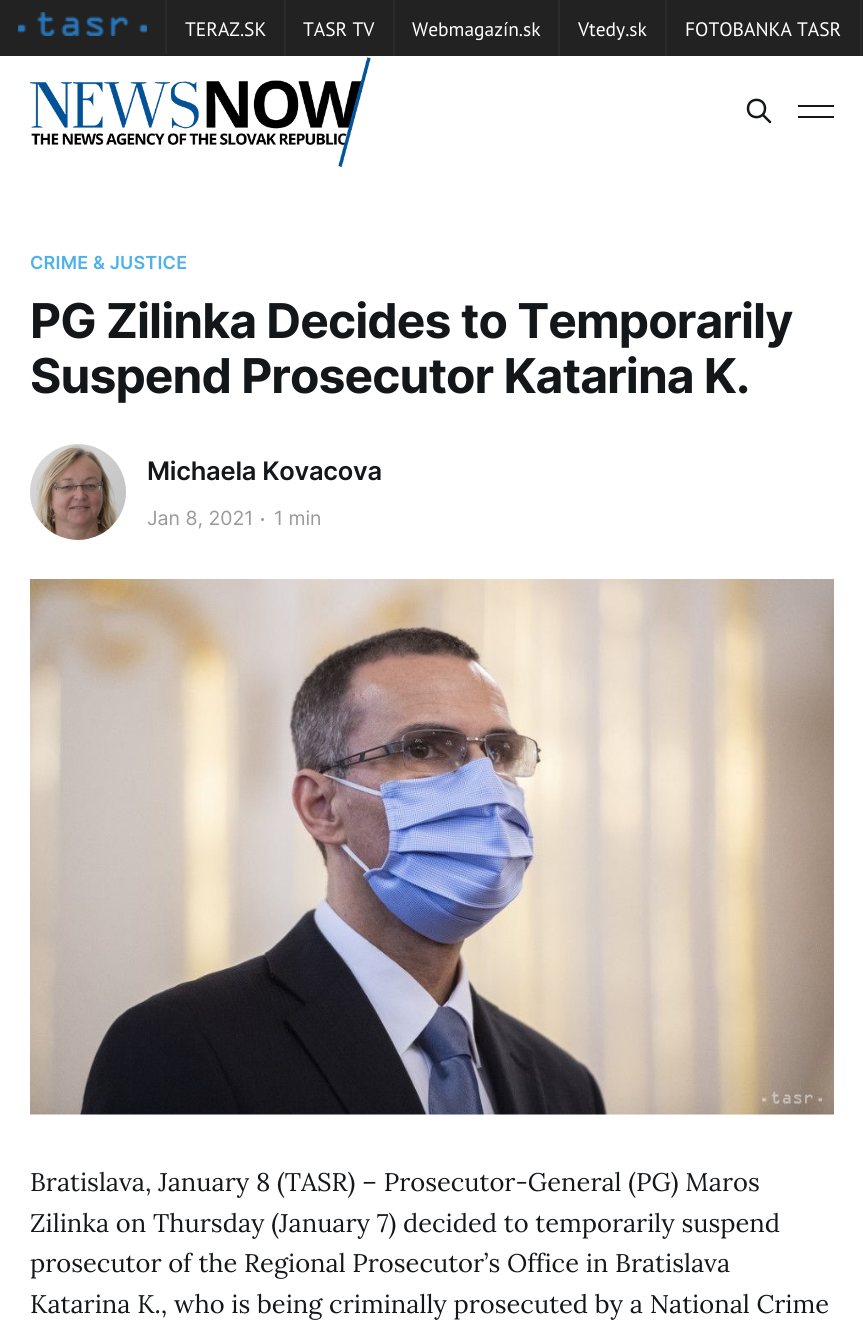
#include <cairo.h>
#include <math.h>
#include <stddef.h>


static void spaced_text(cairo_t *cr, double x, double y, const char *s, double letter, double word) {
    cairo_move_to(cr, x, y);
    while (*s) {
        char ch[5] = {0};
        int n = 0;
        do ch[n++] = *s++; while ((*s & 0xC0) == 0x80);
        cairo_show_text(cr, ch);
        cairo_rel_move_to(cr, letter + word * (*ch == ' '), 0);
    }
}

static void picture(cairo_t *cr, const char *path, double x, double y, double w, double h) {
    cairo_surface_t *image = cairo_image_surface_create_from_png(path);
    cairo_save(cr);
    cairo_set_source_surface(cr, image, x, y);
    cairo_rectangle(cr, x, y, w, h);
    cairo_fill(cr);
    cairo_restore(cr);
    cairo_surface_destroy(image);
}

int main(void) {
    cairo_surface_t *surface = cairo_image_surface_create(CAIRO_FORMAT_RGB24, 863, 1320);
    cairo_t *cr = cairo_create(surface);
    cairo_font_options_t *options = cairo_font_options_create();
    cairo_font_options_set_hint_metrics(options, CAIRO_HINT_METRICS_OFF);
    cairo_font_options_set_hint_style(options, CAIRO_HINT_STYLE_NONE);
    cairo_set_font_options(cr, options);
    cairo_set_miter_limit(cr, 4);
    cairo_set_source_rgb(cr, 1, 1, 1);
    cairo_paint(cr);
    cairo_set_source_rgb(cr, 0.133, 0.133, 0.133);
    cairo_rectangle(cr, 0, 0, 863, 56);
    cairo_fill(cr);
    cairo_set_source_rgb(cr, 0.169, 0.169, 0.169);
    cairo_rectangle(cr, 165, 0, 2, 54);
    cairo_fill(cr);
    picture(cr, "img1.png", 18, 12, 129, 24);
    cairo_rectangle(cr, 284, 0, 2, 56);
    cairo_fill(cr);
    cairo_select_font_face(cr, "PT Sans", CAIRO_FONT_SLANT_NORMAL, CAIRO_FONT_WEIGHT_NORMAL);
    cairo_set_font_size(cr, 19.5);
    cairo_set_source_rgb(cr, 1, 1, 1);
    cairo_move_to(cr, 185, 36);
    cairo_show_text(cr, "TERAZ.SK");
    cairo_set_source_rgb(cr, 0.169, 0.169, 0.169);
    cairo_rectangle(cr, 393, 0, 2, 56);
    cairo_fill(cr);
    cairo_set_source_rgb(cr, 1, 1, 1);
    cairo_move_to(cr, 303, 36);
    cairo_show_text(cr, "TASR TV");
    cairo_set_source_rgb(cr, 0.169, 0.169, 0.169);
    cairo_rectangle(cr, 558, 0, 2, 56);
    cairo_fill(cr);
    cairo_set_source_rgb(cr, 1, 1, 1);
    cairo_move_to(cr, 412, 36);
    cairo_show_text(cr, "Webmagazín.sk");
    cairo_set_source_rgb(cr, 0.169, 0.169, 0.169);
    cairo_rectangle(cr, 665, 0, 2, 56);
    cairo_fill(cr);
    cairo_set_source_rgb(cr, 1, 1, 1);
    cairo_move_to(cr, 578, 36);
    cairo_show_text(cr, "Vtedy.sk");
    cairo_set_source_rgb(cr, 0.169, 0.169, 0.169);
    cairo_rectangle(cr, 860, 0, 2, 56);
    cairo_fill(cr);
    cairo_set_source_rgb(cr, 1, 1, 1);
    cairo_move_to(cr, 685, 36);
    cairo_show_text(cr, "FOTOBANKA TASR");
    picture(cr, "img2.png", 30, 57, 341, 110);
    cairo_new_path(cr);
    cairo_move_to(cr, 770, 122);
    cairo_line_to(cr, 763, 115);
    cairo_move_to(cr, 765, 108.5);
    cairo_curve_to(cr, 765, 120, 748, 120, 748, 108.5);
    cairo_curve_to(cr, 748, 97, 765, 97, 765, 108.5);
    cairo_close_path(cr);
    cairo_set_source_rgb(cr, 0.082, 0.09, 0.102);
    cairo_set_line_width(cr, 2.5);
    cairo_set_line_cap(cr, CAIRO_LINE_CAP_ROUND);
    cairo_set_line_join(cr, CAIRO_LINE_JOIN_ROUND);
    cairo_stroke(cr);
    cairo_rectangle(cr, 798, 105, 36, 2);
    cairo_fill(cr);
    cairo_rectangle(cr, 798, 116, 36, 2);
    cairo_fill(cr);
    cairo_select_font_face(cr, "Inter SemiBold", CAIRO_FONT_SLANT_NORMAL, CAIRO_FONT_WEIGHT_NORMAL);
    cairo_set_font_size(cr, 18);
    cairo_set_source_rgb(cr, 0.302, 0.698, 0.925);
    spaced_text(cr, 30, 269, "CRIME & JUSTICE", 0.2, 0);
    cairo_select_font_face(cr, "Inter", CAIRO_FONT_SLANT_NORMAL, CAIRO_FONT_WEIGHT_BOLD);
    cairo_set_font_size(cr, 48);
    cairo_set_source_rgb(cr, 0.082, 0.09, 0.102);
    spaced_text(cr, 30, 338, "PG Zilinka Decides to Temporarily", -0.95, 0);
    spaced_text(cr, 30, 393, "Suspend Prosecutor Katarina K.", -0.95, 0);
    picture(cr, "img3.png", 30, 444, 96, 96);
    cairo_select_font_face(cr, "Inter SemiBold", CAIRO_FONT_SLANT_NORMAL, CAIRO_FONT_WEIGHT_NORMAL);
    cairo_set_font_size(cr, 25.5);
    spaced_text(cr, 147, 480, "Michaela Kovacova", -0.25, 0);
    cairo_select_font_face(cr, "Inter", CAIRO_FONT_SLANT_NORMAL, CAIRO_FONT_WEIGHT_NORMAL);
    cairo_set_font_size(cr, 19.5);
    cairo_set_source_rgb(cr, 0.6, 0.6, 0.6);
    cairo_move_to(cr, 147, 525);
    cairo_show_text(cr, "Jan 8, 2021");
    cairo_new_path(cr);
    cairo_arc(cr, 262.5, 519.5, 1.5, 0, 2 * M_PI);
    cairo_fill(cr);
    cairo_move_to(cr, 274, 525);
    cairo_show_text(cr, "1 min");
    picture(cr, "img4.png", 30, 579, 804, 536);
    cairo_select_font_face(cr, "Lora", CAIRO_FONT_SLANT_NORMAL, CAIRO_FONT_WEIGHT_NORMAL);
    cairo_set_font_size(cr, 25.5);
    cairo_set_source_rgb(cr, 0.082, 0.09, 0.102);
    cairo_move_to(cr, 30, 1191);
    cairo_show_text(cr, "Bratislava, January 8 (TASR) – Prosecutor-General (PG) Maros");
    cairo_move_to(cr, 30, 1232);
    cairo_show_text(cr, "Zilinka on Thursday (January 7) decided to temporarily suspend");
    cairo_move_to(cr, 30, 1272);
    cairo_show_text(cr, "prosecutor of the Regional Prosecutor’s Office in Bratislava");
    cairo_move_to(cr, 30, 1313);
    cairo_show_text(cr, "Katarina K., who is being criminally prosecuted by a National Crime");
    cairo_surface_write_to_png(surface, "page.png");
    cairo_font_options_destroy(options);
    cairo_destroy(cr);
    cairo_surface_destroy(surface);
    return 0;
}
